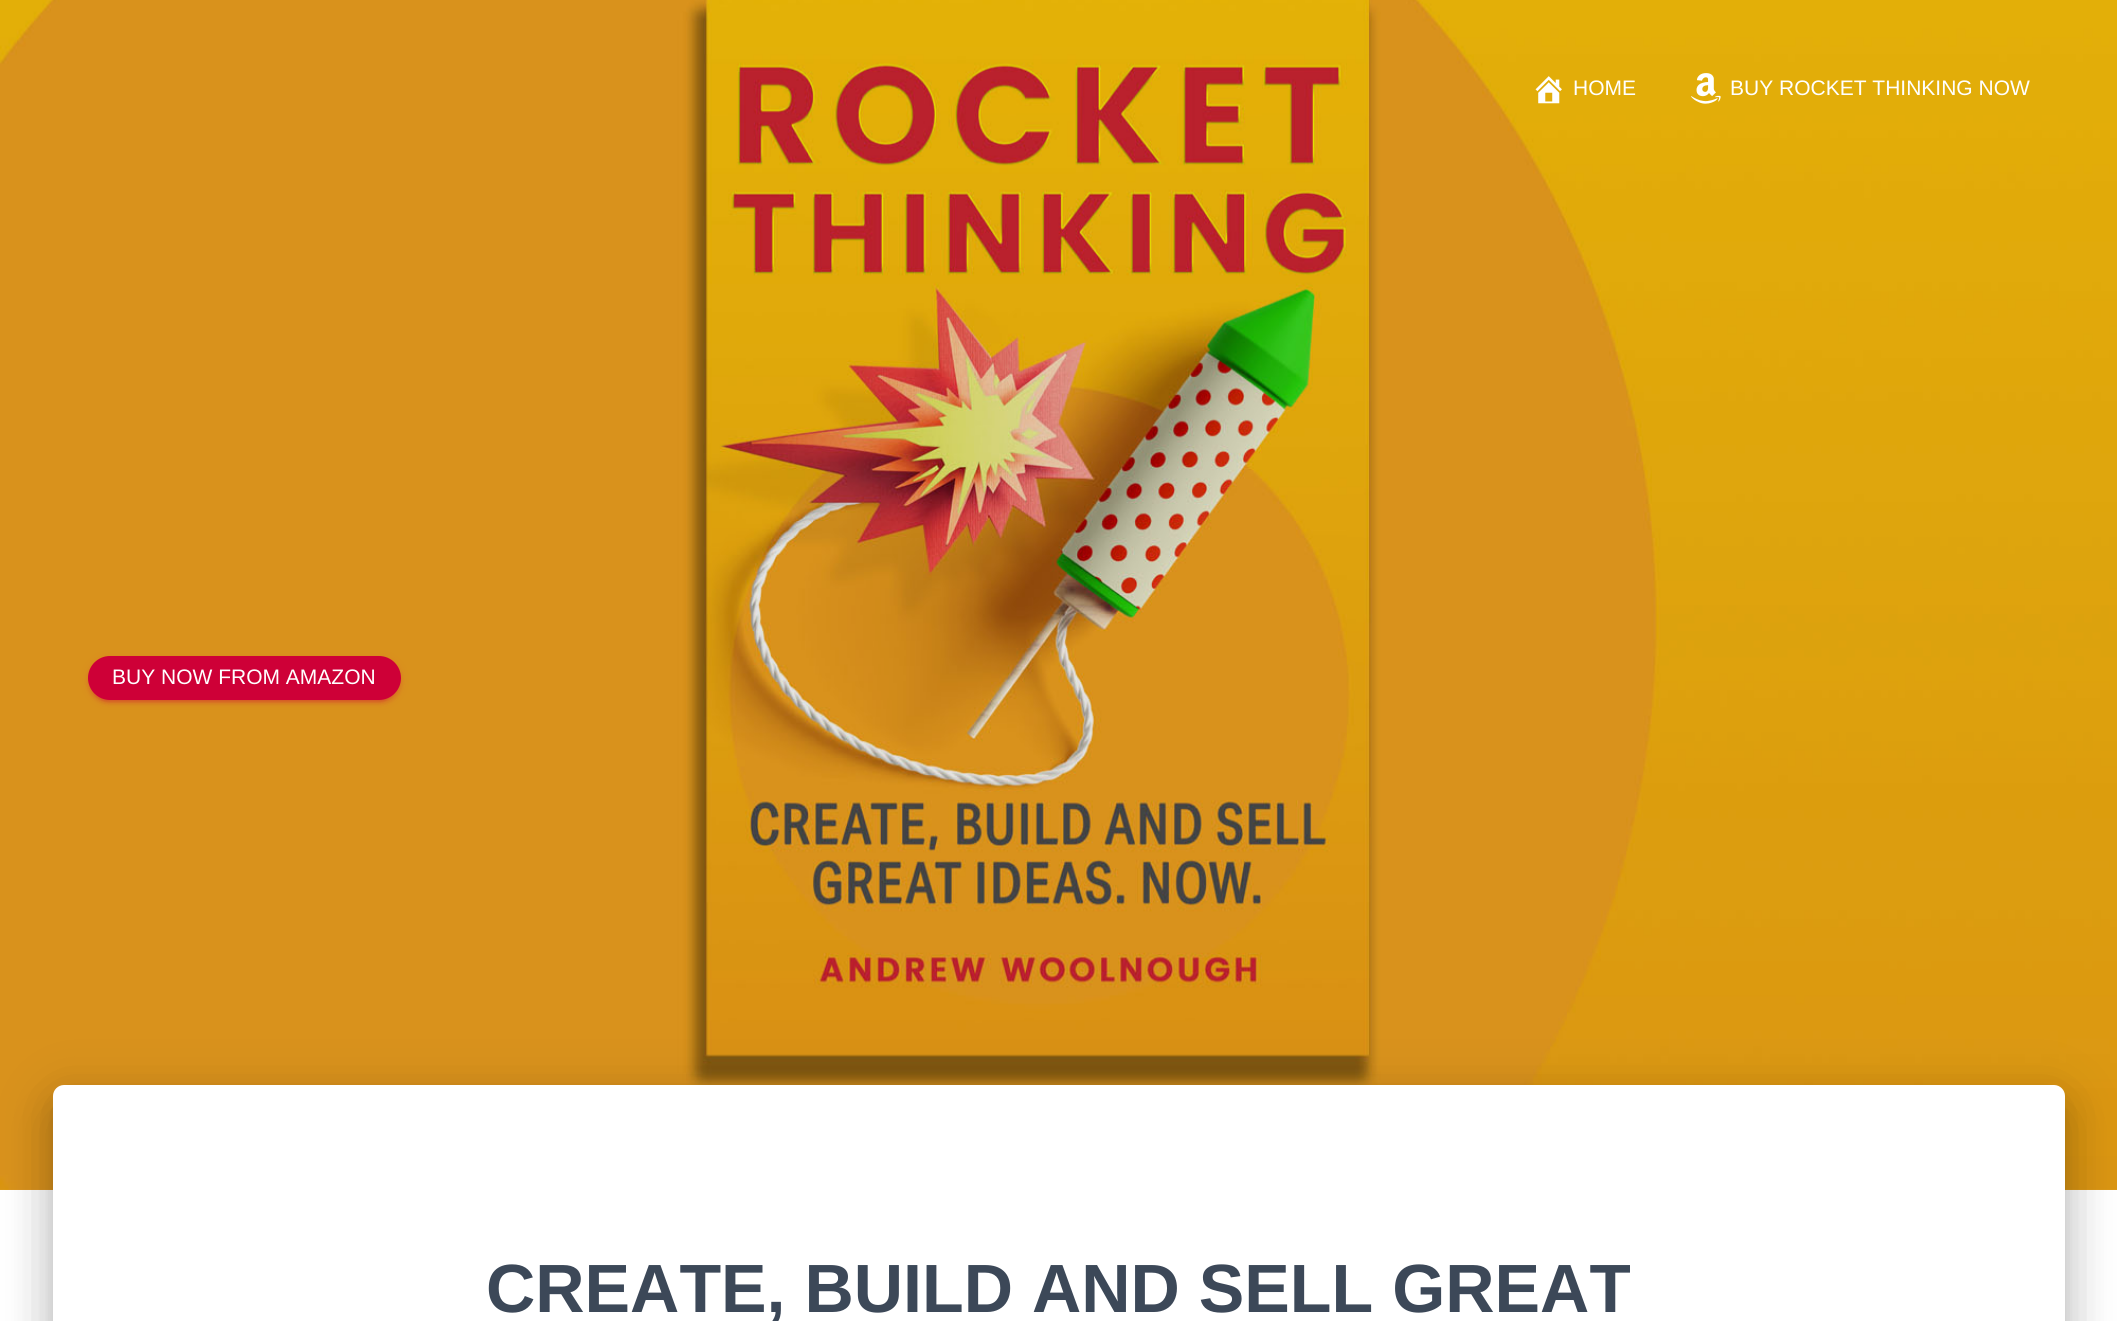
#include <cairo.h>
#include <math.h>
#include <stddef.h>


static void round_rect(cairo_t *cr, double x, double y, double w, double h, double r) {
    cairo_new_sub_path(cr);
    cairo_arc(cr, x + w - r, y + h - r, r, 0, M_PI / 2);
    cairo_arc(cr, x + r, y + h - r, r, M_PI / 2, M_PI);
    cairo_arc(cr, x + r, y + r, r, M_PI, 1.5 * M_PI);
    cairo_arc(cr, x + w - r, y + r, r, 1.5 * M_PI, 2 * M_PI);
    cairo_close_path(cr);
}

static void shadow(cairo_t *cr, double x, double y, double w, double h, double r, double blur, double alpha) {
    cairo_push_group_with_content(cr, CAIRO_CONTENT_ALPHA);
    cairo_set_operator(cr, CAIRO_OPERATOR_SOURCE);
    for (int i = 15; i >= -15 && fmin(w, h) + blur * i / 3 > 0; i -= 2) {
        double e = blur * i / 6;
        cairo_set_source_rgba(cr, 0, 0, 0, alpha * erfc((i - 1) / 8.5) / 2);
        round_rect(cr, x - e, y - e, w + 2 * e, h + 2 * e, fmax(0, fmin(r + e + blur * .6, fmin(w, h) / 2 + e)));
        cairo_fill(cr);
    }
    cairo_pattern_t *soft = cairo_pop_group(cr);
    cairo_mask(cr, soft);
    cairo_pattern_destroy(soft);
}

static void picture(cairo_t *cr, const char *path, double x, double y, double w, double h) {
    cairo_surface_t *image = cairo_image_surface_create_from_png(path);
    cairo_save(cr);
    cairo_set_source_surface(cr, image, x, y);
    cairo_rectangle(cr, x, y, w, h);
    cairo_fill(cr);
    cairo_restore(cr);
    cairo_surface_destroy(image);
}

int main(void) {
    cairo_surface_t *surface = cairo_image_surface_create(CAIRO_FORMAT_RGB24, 2117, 1321);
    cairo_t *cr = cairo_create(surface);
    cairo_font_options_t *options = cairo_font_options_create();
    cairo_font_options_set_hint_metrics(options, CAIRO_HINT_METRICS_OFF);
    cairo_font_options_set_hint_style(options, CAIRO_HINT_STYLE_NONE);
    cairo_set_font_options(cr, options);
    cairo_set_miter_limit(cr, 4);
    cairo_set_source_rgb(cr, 1, 1, 1);
    cairo_paint(cr);
    picture(cr, "img3.png", 0, 0, 2117, 1190);
    picture(cr, "img1.png", 1535, 76, 27, 28);
    cairo_select_font_face(cr, "Liberation Sans", CAIRO_FONT_SLANT_NORMAL, CAIRO_FONT_WEIGHT_NORMAL);
    cairo_set_font_size(cr, 21);
    cairo_set_source_rgb(cr, 1, 1, 1);
    cairo_move_to(cr, 1573, 95);
    cairo_show_text(cr, "HOME");
    picture(cr, "img2.png", 1691, 73, 30, 31);
    cairo_move_to(cr, 1730, 95);
    cairo_show_text(cr, "BUY ROCKET THINKING NOW");
    cairo_set_source_rgb(cr, 0.808, 0, 0.216);
    shadow(cr, 88, 658, 313, 44, 22, 4.5, 0.12);
    shadow(cr, 91, 665, 306, 37, 18.5, 1, 0.2);
    shadow(cr, 88, 660, 313, 44, 22, 2, 0.14);
    cairo_set_source_rgb(cr, 0.808, 0, 0.216);
    round_rect(cr, 88, 656, 313, 44, 22);
    cairo_fill(cr);
    cairo_set_source_rgb(cr, 1, 1, 1);
    cairo_move_to(cr, 112, 684);
    cairo_show_text(cr, "BUY NOW FROM AMAZON");
    cairo_set_source_rgb(cr, 0, 0, 0);
    shadow(cr, 61, 1108, 1995, 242, 2, 9, 0.2);
    shadow(cr, 44, 1087, 2030, 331, 19, 26, 0.12);
    shadow(cr, 49, 1110, 2020, 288, 14, 21, 0.14);
    cairo_set_source_rgb(cr, 1, 1, 1);
    cairo_new_path(cr);
    cairo_move_to(cr, 64, 1085);
    cairo_line_to(cr, 2054, 1085);
    cairo_curve_to(cr, 2060, 1085, 2065, 1090, 2065, 1096);
    cairo_line_to(cr, 2065, 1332);
    cairo_line_to(cr, 53, 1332);
    cairo_line_to(cr, 53, 1096);
    cairo_curve_to(cr, 53, 1090, 58, 1085, 64, 1085);
    cairo_close_path(cr);
    cairo_fill(cr);
    cairo_select_font_face(cr, "Liberation Sans", CAIRO_FONT_SLANT_NORMAL, CAIRO_FONT_WEIGHT_BOLD);
    cairo_set_font_size(cr, 68.25);
    cairo_set_source_rgb(cr, 0.235, 0.282, 0.345);
    cairo_move_to(cr, 486, 1312);
    cairo_show_text(cr, "CREATE, BUILD AND SELL GREAT");
    cairo_surface_write_to_png(surface, "page.png");
    cairo_font_options_destroy(options);
    cairo_destroy(cr);
    cairo_surface_destroy(surface);
    return 0;
}
